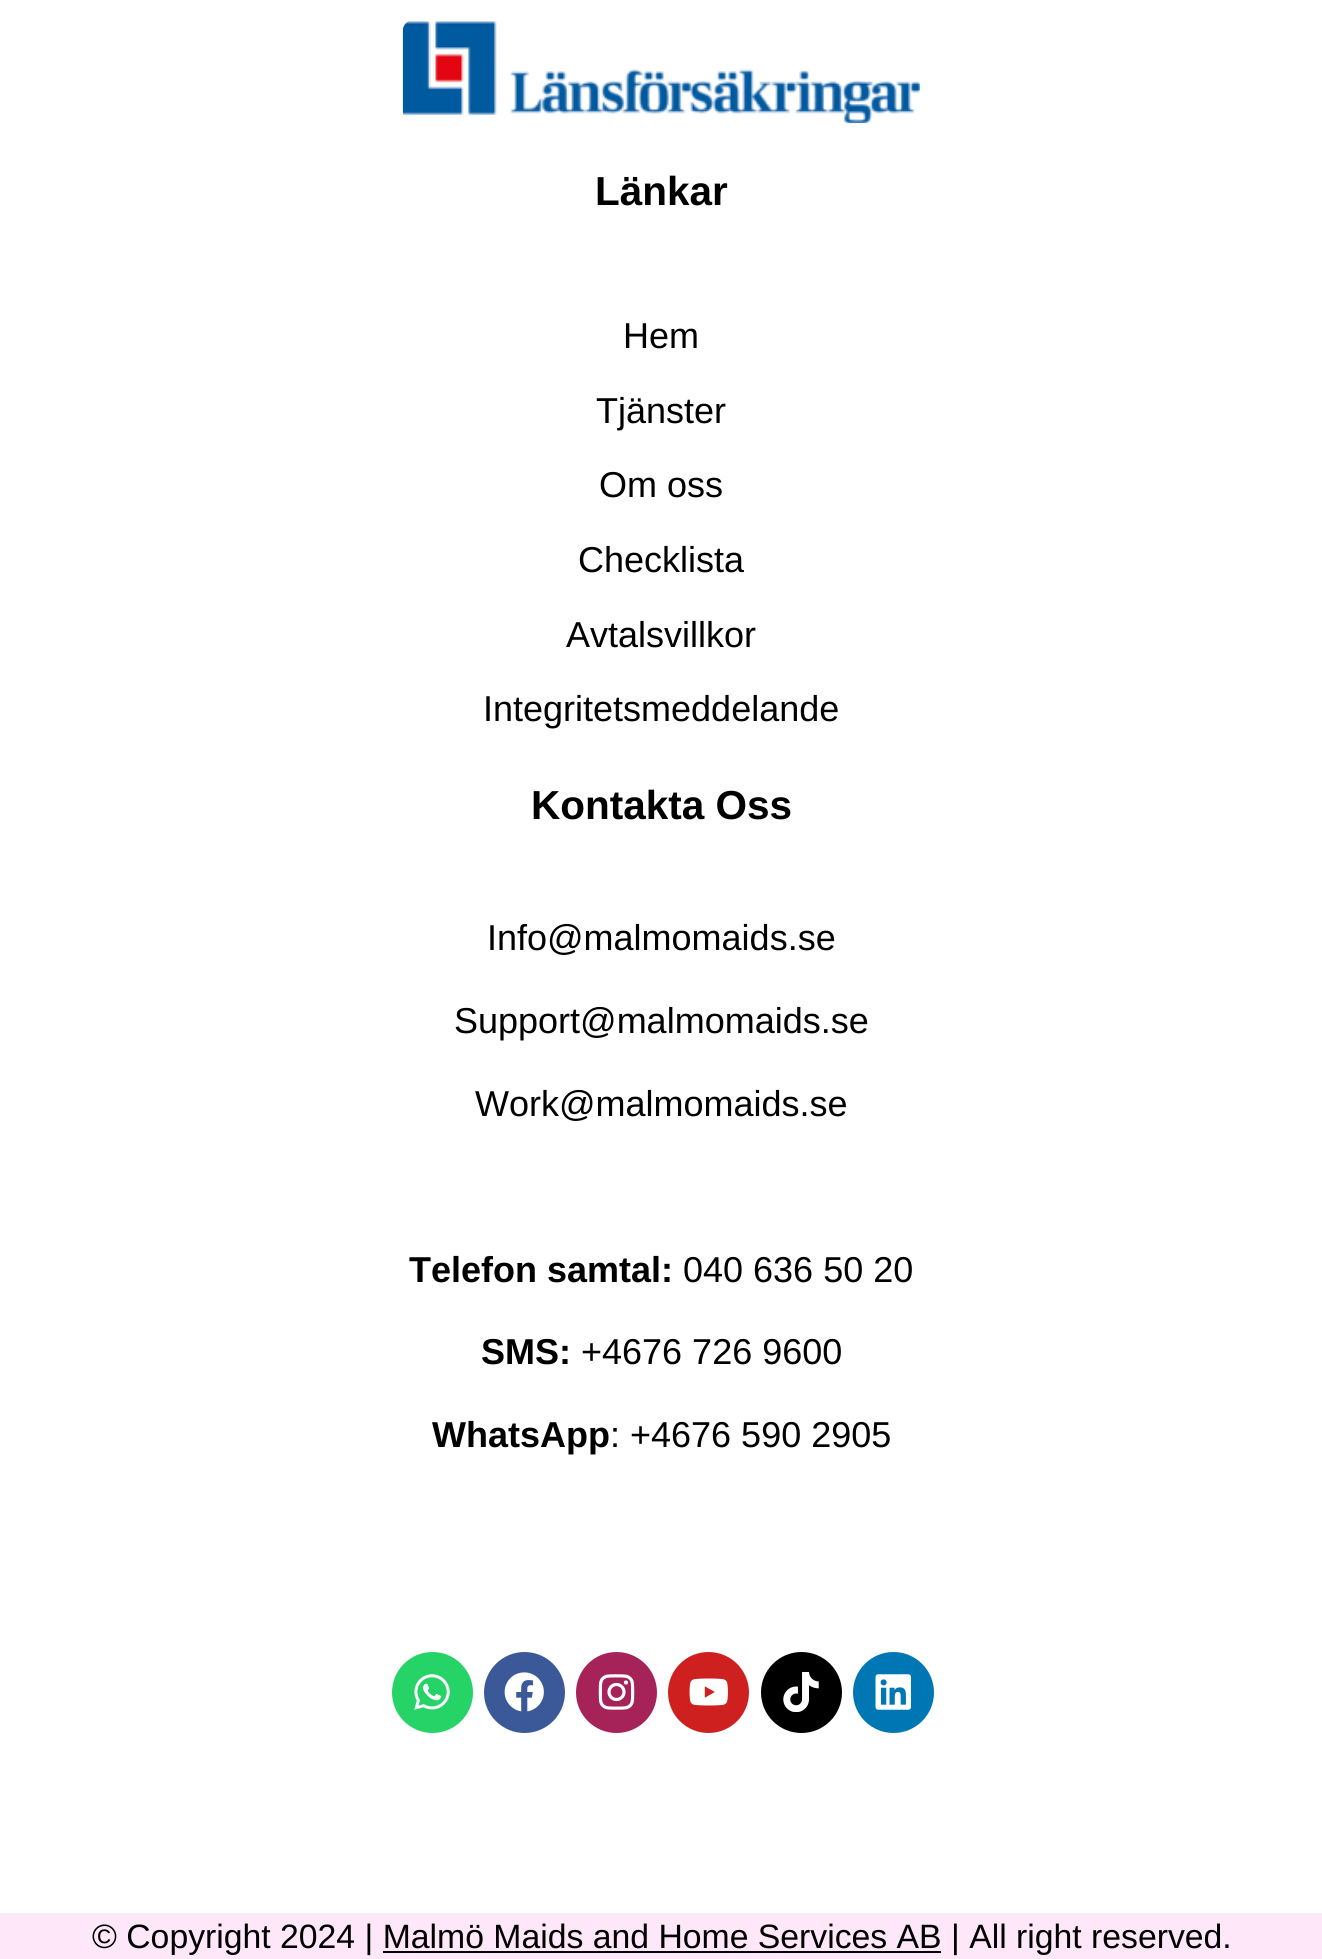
#include <cairo.h>
#include <math.h>
#include <stddef.h>


static void picture(cairo_t *cr, const char *path, double x, double y, double w, double h) {
    cairo_surface_t *image = cairo_image_surface_create_from_png(path);
    cairo_save(cr);
    cairo_set_source_surface(cr, image, x, y);
    cairo_rectangle(cr, x, y, w, h);
    cairo_fill(cr);
    cairo_restore(cr);
    cairo_surface_destroy(image);
}

int main(void) {
    cairo_surface_t *surface = cairo_image_surface_create(CAIRO_FORMAT_RGB24, 1322, 1959);
    cairo_t *cr = cairo_create(surface);
    cairo_font_options_t *options = cairo_font_options_create();
    cairo_font_options_set_hint_metrics(options, CAIRO_HINT_METRICS_OFF);
    cairo_font_options_set_hint_style(options, CAIRO_HINT_STYLE_NONE);
    cairo_set_font_options(cr, options);
    cairo_set_miter_limit(cr, 4);
    cairo_set_source_rgb(cr, 1, 1, 1);
    cairo_paint(cr);
    picture(cr, "img1.png", 402, 21, 519, 103);
    cairo_select_font_face(cr, "Liberation Sans", CAIRO_FONT_SLANT_NORMAL, CAIRO_FONT_WEIGHT_BOLD);
    cairo_set_font_size(cr, 40.5);
    cairo_set_source_rgb(cr, 0, 0, 0);
    cairo_move_to(cr, 595, 205);
    cairo_show_text(cr, "Länkar");
    cairo_select_font_face(cr, "Liberation Sans", CAIRO_FONT_SLANT_NORMAL, CAIRO_FONT_WEIGHT_NORMAL);
    cairo_set_font_size(cr, 36);
    cairo_move_to(cr, 623, 348);
    cairo_show_text(cr, "Hem");
    cairo_move_to(cr, 596, 423);
    cairo_show_text(cr, "Tjänster");
    cairo_move_to(cr, 599, 497);
    cairo_show_text(cr, "Om oss");
    cairo_move_to(cr, 578, 572);
    cairo_show_text(cr, "Checklista");
    cairo_move_to(cr, 566, 647);
    cairo_show_text(cr, "Avtalsvillkor");
    cairo_move_to(cr, 483, 721);
    cairo_show_text(cr, "Integritetsmeddelande");
    cairo_select_font_face(cr, "Liberation Sans", CAIRO_FONT_SLANT_NORMAL, CAIRO_FONT_WEIGHT_BOLD);
    cairo_set_font_size(cr, 40.5);
    cairo_move_to(cr, 531, 819);
    cairo_show_text(cr, "Kontakta Oss");
    cairo_select_font_face(cr, "Liberation Sans", CAIRO_FONT_SLANT_NORMAL, CAIRO_FONT_WEIGHT_NORMAL);
    cairo_set_font_size(cr, 36);
    cairo_move_to(cr, 487, 950);
    cairo_show_text(cr, "Info@malmomaids.se");
    cairo_move_to(cr, 454, 1033);
    cairo_show_text(cr, "Support@malmomaids.se");
    cairo_move_to(cr, 475, 1116);
    cairo_show_text(cr, "Work@malmomaids.se");
    cairo_select_font_face(cr, "Liberation Sans", CAIRO_FONT_SLANT_NORMAL, CAIRO_FONT_WEIGHT_BOLD);
    cairo_move_to(cr, 409, 1282);
    cairo_show_text(cr, "Telefon samtal:");
    cairo_select_font_face(cr, "Liberation Sans", CAIRO_FONT_SLANT_NORMAL, CAIRO_FONT_WEIGHT_NORMAL);
    cairo_move_to(cr, 683, 1282);
    cairo_show_text(cr, "040 636 50 20");
    cairo_select_font_face(cr, "Liberation Sans", CAIRO_FONT_SLANT_NORMAL, CAIRO_FONT_WEIGHT_BOLD);
    cairo_move_to(cr, 481, 1364);
    cairo_show_text(cr, "SMS:");
    cairo_select_font_face(cr, "Liberation Sans", CAIRO_FONT_SLANT_NORMAL, CAIRO_FONT_WEIGHT_NORMAL);
    cairo_move_to(cr, 581, 1364);
    cairo_show_text(cr, "+4676 726 9600");
    cairo_select_font_face(cr, "Liberation Sans", CAIRO_FONT_SLANT_NORMAL, CAIRO_FONT_WEIGHT_BOLD);
    cairo_move_to(cr, 432, 1447);
    cairo_show_text(cr, "WhatsApp");
    cairo_select_font_face(cr, "Liberation Sans", CAIRO_FONT_SLANT_NORMAL, CAIRO_FONT_WEIGHT_NORMAL);
    cairo_move_to(cr, 610, 1447);
    cairo_show_text(cr, ": +4676 590 2905");
    cairo_set_source_rgb(cr, 0.145, 0.827, 0.4);
    cairo_new_path(cr);
    cairo_arc(cr, 432.5, 1692.5, 40.5, 0, 2 * M_PI);
    cairo_fill(cr);
    picture(cr, "img2.png", 414, 1674, 36, 36);
    cairo_set_source_rgb(cr, 0.231, 0.349, 0.596);
    cairo_arc(cr, 524.5, 1692.5, 40.5, 0, 2 * M_PI);
    cairo_fill(cr);
    picture(cr, "img3.png", 504, 1672, 40, 40);
    cairo_set_source_rgb(cr, 0.651, 0.137, 0.349);
    cairo_arc(cr, 616.5, 1692.5, 40.5, 0, 2 * M_PI);
    cairo_fill(cr);
    picture(cr, "img4.png", 598, 1674, 37, 36);
    cairo_set_source_rgb(cr, 0.804, 0.125, 0.122);
    cairo_arc(cr, 708.5, 1692.5, 40.5, 0, 2 * M_PI);
    cairo_fill(cr);
    picture(cr, "img5.png", 689, 1678, 39, 28);
    cairo_set_source_rgb(cr, 0, 0, 0);
    cairo_arc(cr, 801.5, 1692.5, 40.5, 0, 2 * M_PI);
    cairo_fill(cr);
    picture(cr, "img6.png", 783, 1672, 36, 40);
    cairo_set_source_rgb(cr, 0, 0.467, 0.71);
    cairo_arc(cr, 893.5, 1692.5, 40.5, 0, 2 * M_PI);
    cairo_fill(cr);
    picture(cr, "img7.png", 875, 1674, 36, 36);
    cairo_set_source_rgb(cr, 0.992, 0.906, 0.976);
    cairo_rectangle(cr, 0, 1913, 1322, 46);
    cairo_fill(cr);
    cairo_set_font_size(cr, 33.75);
    cairo_set_source_rgb(cr, 0, 0, 0);
    cairo_move_to(cr, 92, 1948);
    cairo_show_text(cr, "© Copyright 2024 | Malmö Maids and Home Services AB | All right reserved.");
    cairo_rectangle(cr, 383, 1951, 558, 2);
    cairo_fill(cr);
    cairo_surface_write_to_png(surface, "page.png");
    cairo_font_options_destroy(options);
    cairo_destroy(cr);
    cairo_surface_destroy(surface);
    return 0;
}
